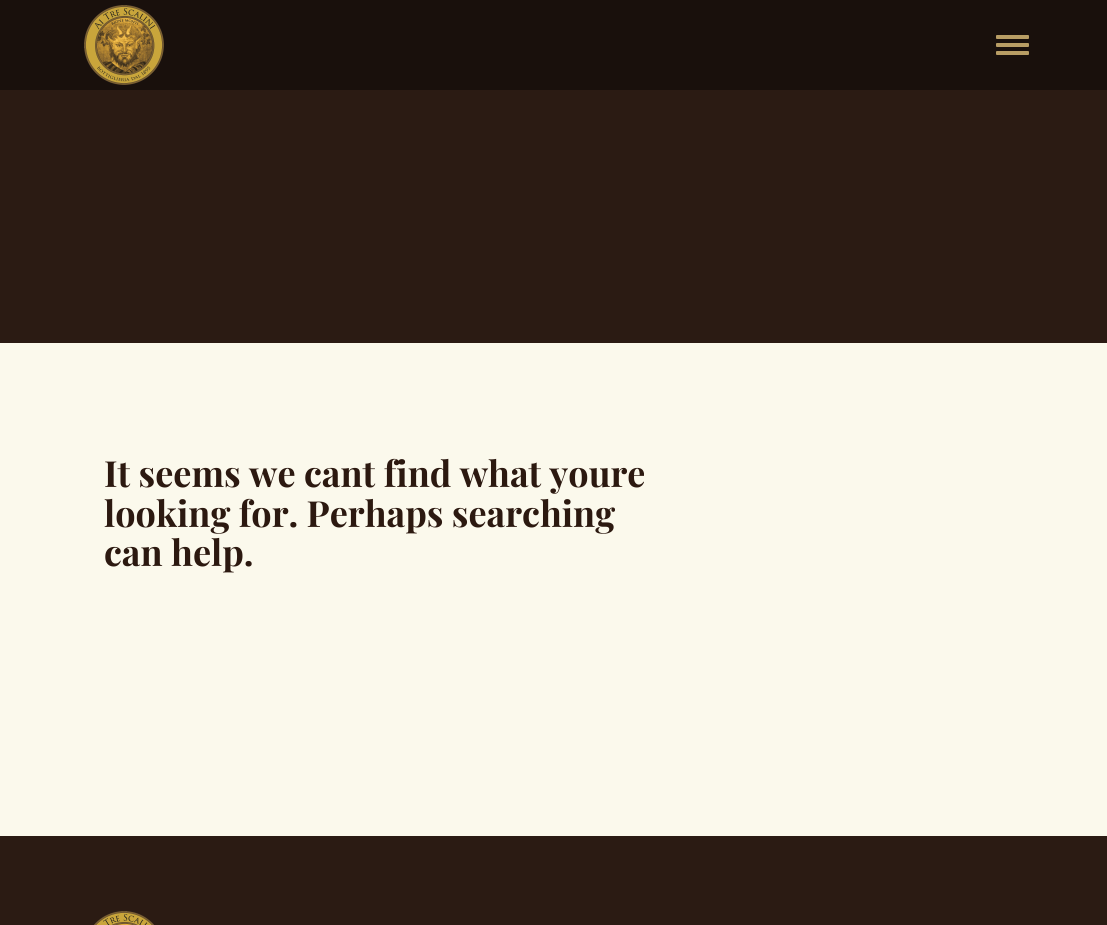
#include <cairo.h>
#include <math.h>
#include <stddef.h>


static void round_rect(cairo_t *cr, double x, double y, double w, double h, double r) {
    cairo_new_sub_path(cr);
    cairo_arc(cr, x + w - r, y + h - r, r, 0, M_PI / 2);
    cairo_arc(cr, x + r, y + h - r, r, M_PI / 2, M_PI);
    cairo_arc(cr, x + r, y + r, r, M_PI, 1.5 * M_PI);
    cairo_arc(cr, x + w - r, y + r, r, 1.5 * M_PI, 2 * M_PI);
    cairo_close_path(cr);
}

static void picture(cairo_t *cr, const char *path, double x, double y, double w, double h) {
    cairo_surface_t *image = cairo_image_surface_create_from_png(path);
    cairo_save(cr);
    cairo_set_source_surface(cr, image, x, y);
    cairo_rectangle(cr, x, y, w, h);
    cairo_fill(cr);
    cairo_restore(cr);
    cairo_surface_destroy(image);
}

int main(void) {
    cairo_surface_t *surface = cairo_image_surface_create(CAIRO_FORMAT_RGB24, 1107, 925);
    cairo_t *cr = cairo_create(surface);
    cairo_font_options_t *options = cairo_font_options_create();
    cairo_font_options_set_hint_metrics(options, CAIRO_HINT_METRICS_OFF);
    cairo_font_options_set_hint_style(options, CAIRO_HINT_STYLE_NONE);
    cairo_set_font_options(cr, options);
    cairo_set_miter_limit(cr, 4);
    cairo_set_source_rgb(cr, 0.984, 0.976, 0.925);
    cairo_paint(cr);
    cairo_set_source_rgb(cr, 0.098, 0.063, 0.047);
    cairo_rectangle(cr, 0, 0, 1107, 90);
    cairo_fill(cr);
    picture(cr, "img1.png", 84, 5, 80, 80);
    cairo_set_source_rgb(cr, 0.722, 0.616, 0.392);
    round_rect(cr, 996, 35, 33, 4, 1);
    cairo_fill(cr);
    round_rect(cr, 996, 43, 33, 4, 1);
    cairo_fill(cr);
    round_rect(cr, 996, 51, 33, 4, 1);
    cairo_fill(cr);
    cairo_set_source_rgb(cr, 0.169, 0.106, 0.075);
    cairo_rectangle(cr, 0, 90, 1107, 253);
    cairo_fill(cr);
    cairo_select_font_face(cr, "Playfair Display", CAIRO_FONT_SLANT_NORMAL, CAIRO_FONT_WEIGHT_BOLD);
    cairo_set_font_size(cr, 36);
    cairo_set_source_rgb(cr, 0.173, 0.098, 0.063);
    cairo_move_to(cr, 104, 487);
    cairo_show_text(cr, "It seems we cant find what youre");
    cairo_move_to(cr, 104, 527);
    cairo_show_text(cr, "looking for. Perhaps searching");
    cairo_move_to(cr, 104, 566);
    cairo_show_text(cr, "can help.");
    cairo_set_source_rgb(cr, 0.169, 0.106, 0.075);
    cairo_rectangle(cr, 0, 836, 1107, 89);
    cairo_fill(cr);
    picture(cr, "img2.png", 94, 911, 60, 14);
    cairo_surface_write_to_png(surface, "page.png");
    cairo_font_options_destroy(options);
    cairo_destroy(cr);
    cairo_surface_destroy(surface);
    return 0;
}
